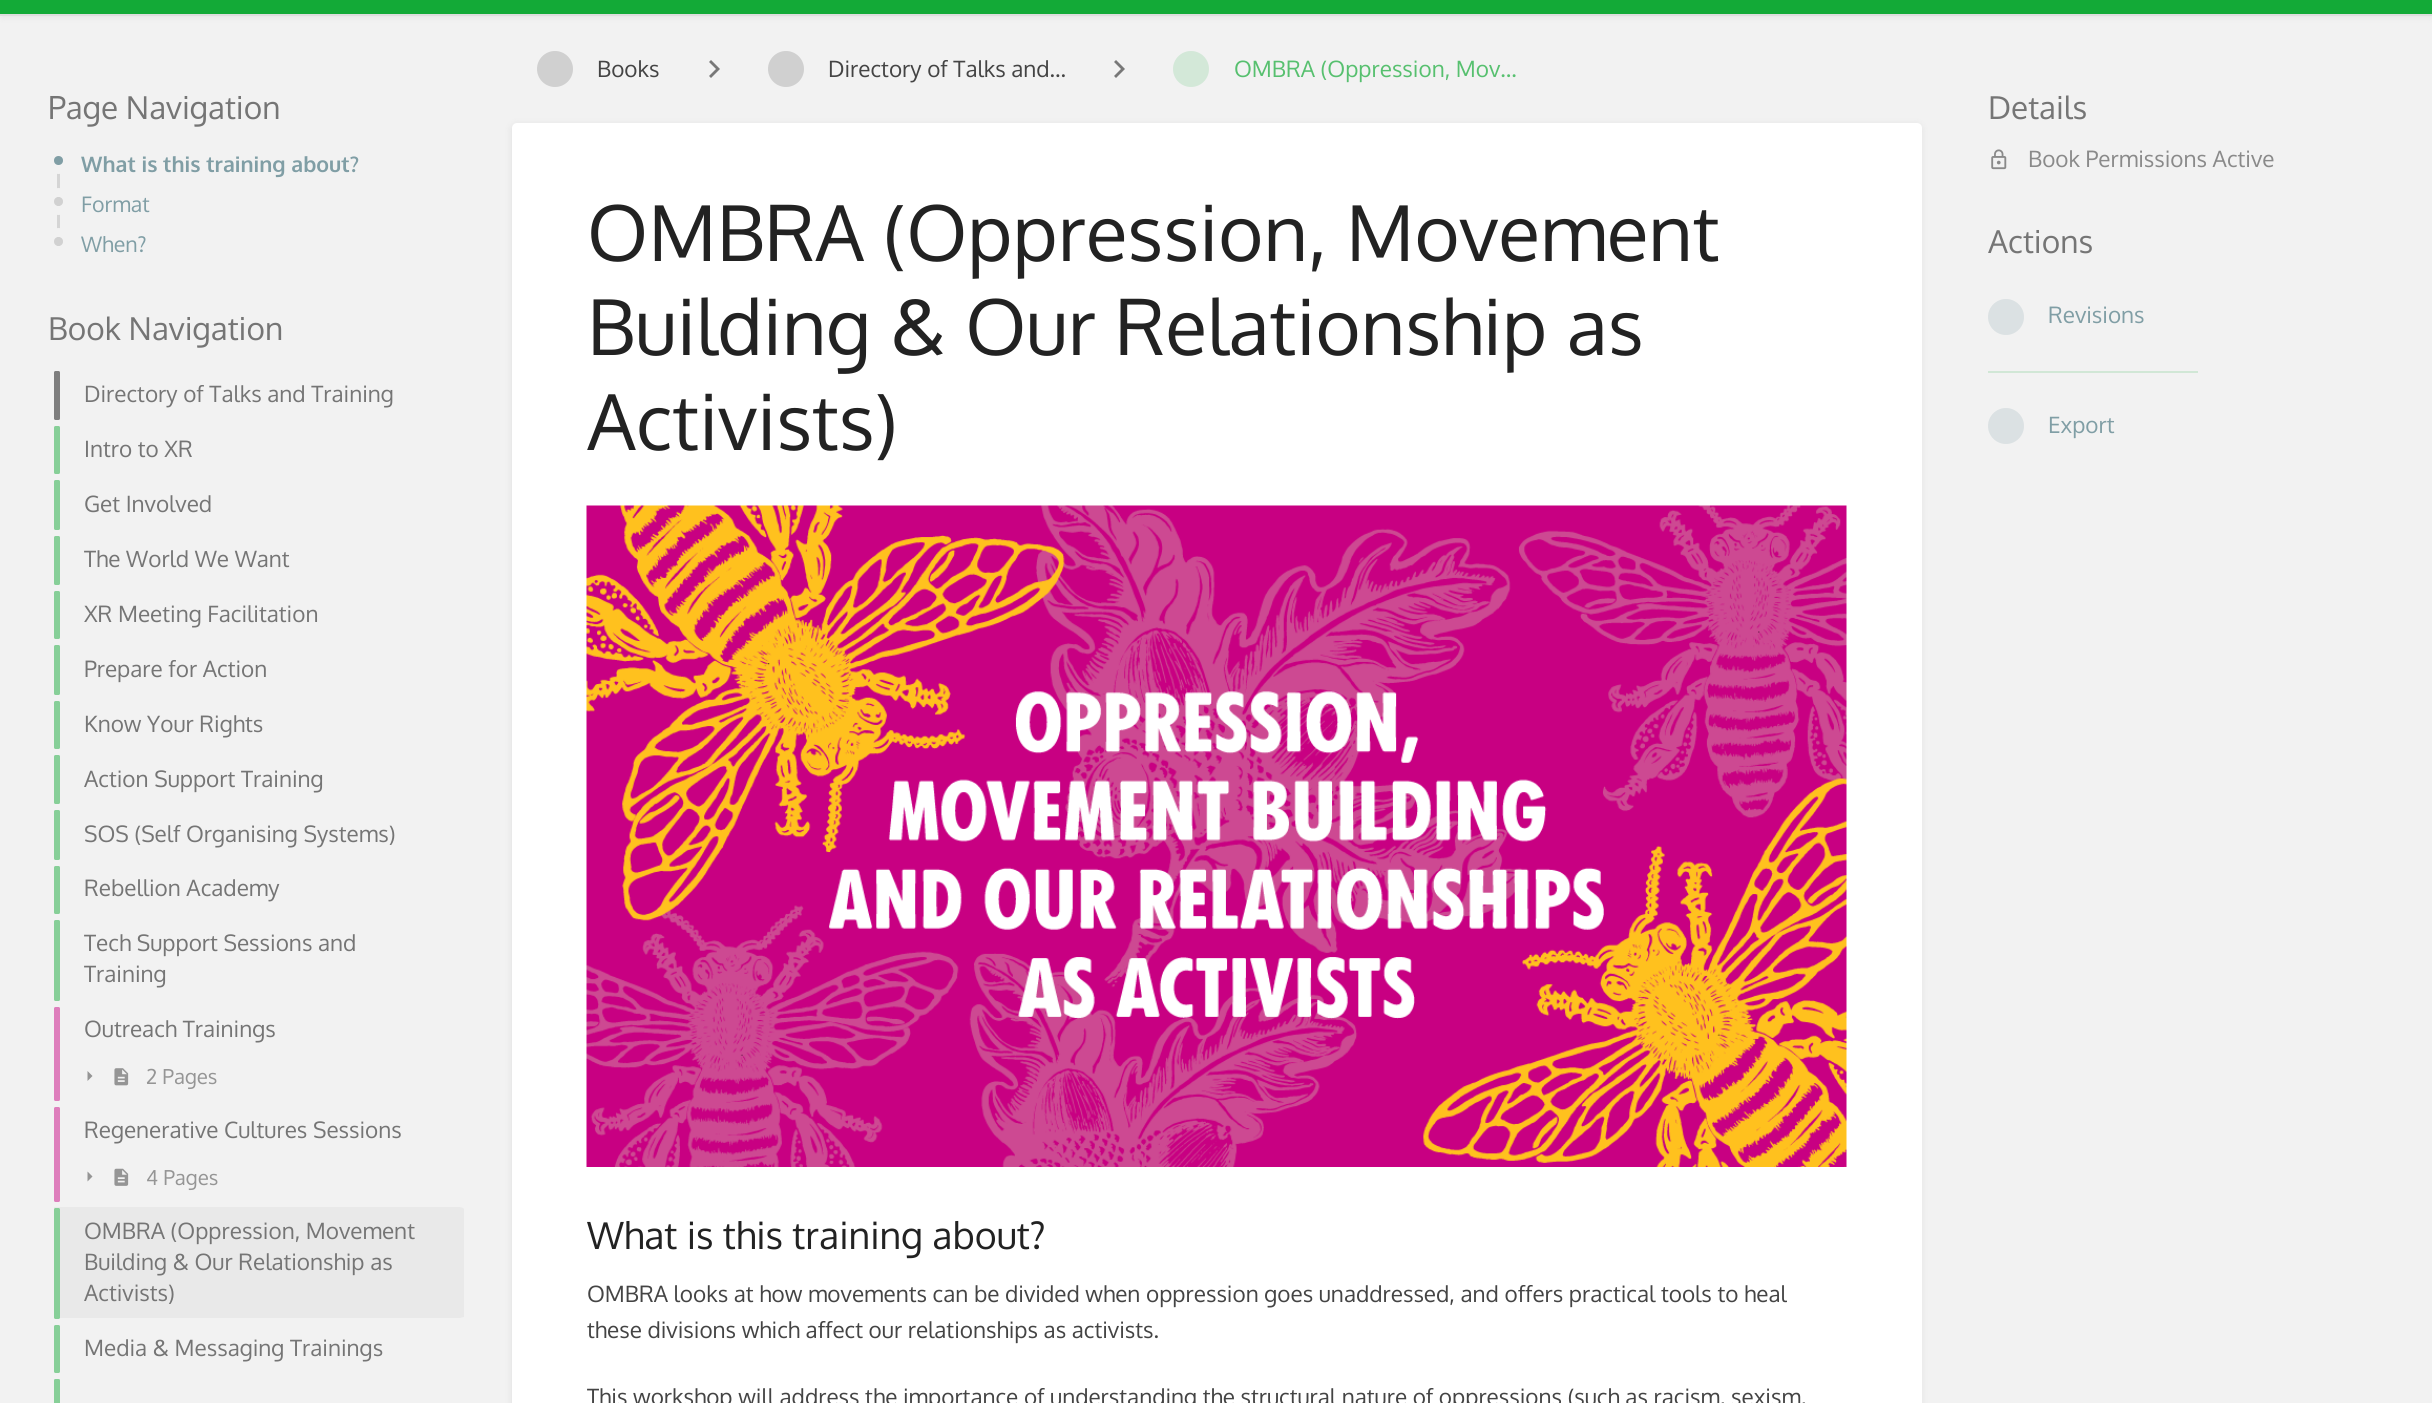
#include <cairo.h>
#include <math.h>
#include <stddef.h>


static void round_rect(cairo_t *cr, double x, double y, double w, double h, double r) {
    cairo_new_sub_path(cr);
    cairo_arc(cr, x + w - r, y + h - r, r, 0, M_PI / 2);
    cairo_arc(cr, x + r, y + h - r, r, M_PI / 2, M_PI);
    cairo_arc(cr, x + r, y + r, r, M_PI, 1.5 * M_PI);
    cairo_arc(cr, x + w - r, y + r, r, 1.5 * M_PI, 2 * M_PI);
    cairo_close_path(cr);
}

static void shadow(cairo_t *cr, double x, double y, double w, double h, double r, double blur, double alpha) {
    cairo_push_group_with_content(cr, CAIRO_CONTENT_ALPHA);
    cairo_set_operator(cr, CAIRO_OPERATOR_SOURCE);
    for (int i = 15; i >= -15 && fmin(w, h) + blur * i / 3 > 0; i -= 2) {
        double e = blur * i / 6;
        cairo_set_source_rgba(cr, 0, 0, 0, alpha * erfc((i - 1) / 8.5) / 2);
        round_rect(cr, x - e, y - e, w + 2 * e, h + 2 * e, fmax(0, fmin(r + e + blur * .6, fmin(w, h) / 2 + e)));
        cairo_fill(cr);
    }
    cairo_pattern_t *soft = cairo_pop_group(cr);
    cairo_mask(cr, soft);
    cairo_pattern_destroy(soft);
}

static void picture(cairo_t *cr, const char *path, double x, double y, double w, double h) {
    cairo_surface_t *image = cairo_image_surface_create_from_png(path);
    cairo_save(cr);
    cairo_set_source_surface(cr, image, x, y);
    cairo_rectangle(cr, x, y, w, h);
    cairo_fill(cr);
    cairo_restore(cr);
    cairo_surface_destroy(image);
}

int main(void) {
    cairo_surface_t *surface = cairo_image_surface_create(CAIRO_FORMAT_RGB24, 2432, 1403);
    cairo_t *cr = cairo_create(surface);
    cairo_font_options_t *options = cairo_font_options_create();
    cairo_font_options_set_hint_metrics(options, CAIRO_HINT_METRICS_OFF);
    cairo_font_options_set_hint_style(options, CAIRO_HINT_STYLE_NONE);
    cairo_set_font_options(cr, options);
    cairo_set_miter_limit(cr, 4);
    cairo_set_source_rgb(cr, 0.949, 0.949, 0.949);
    cairo_paint(cr);
    cairo_set_source_rgb(cr, 0, 0, 0);
    shadow(cr, 2, -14, 2430, 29, 0, 4.5, 0.1);
    cairo_set_source_rgb(cr, 0.078, 0.667, 0.216);
    cairo_rectangle(cr, 0, 0, 2432, 14);
    cairo_fill(cr);
    cairo_set_source_rgb(cr, 0.867, 0.867, 0.867);
    cairo_rectangle(cr, 0, 14, 2432, 2);
    cairo_fill(cr);
    cairo_select_font_face(cr, "Oxygen", CAIRO_FONT_SLANT_NORMAL, CAIRO_FONT_WEIGHT_NORMAL);
    cairo_set_font_size(cr, 31.5);
    cairo_set_source_rgb(cr, 0.459, 0.459, 0.459);
    cairo_move_to(cr, 48, 119);
    cairo_show_text(cr, "Page Navigation");
    cairo_set_source_rgb(cr, 0.835, 0.835, 0.835);
    cairo_rectangle(cr, 57, 155, 3, 99);
    cairo_fill(cr);
    cairo_arc(cr, 58.5, 160.5, 9, 0, 2 * M_PI);
    cairo_set_source_rgb(cr, 0.949, 0.949, 0.949);
    cairo_set_line_width(cr, 9);
    cairo_stroke(cr);
    cairo_set_source_rgb(cr, 0.502, 0.62, 0.647);
    cairo_arc(cr, 58.5, 160.5, 4.5, 0, 2 * M_PI);
    cairo_fill(cr);
    cairo_select_font_face(cr, "Oxygen", CAIRO_FONT_SLANT_NORMAL, CAIRO_FONT_WEIGHT_BOLD);
    cairo_set_font_size(cr, 21.4);
    cairo_move_to(cr, 81, 172);
    cairo_show_text(cr, "What is this training about?");
    cairo_new_path(cr);
    cairo_arc(cr, 58.5, 201.5, 9, 0, 2 * M_PI);
    cairo_set_source_rgb(cr, 0.949, 0.949, 0.949);
    cairo_stroke(cr);
    cairo_set_source_rgb(cr, 0.82, 0.82, 0.82);
    cairo_arc(cr, 58.5, 201.5, 4.5, 0, 2 * M_PI);
    cairo_fill(cr);
    cairo_select_font_face(cr, "Oxygen", CAIRO_FONT_SLANT_NORMAL, CAIRO_FONT_WEIGHT_NORMAL);
    cairo_set_source_rgb(cr, 0.502, 0.62, 0.647);
    cairo_move_to(cr, 81, 212);
    cairo_show_text(cr, "Format");
    cairo_new_path(cr);
    cairo_arc(cr, 58.5, 241.5, 9, 0, 2 * M_PI);
    cairo_set_source_rgb(cr, 0.949, 0.949, 0.949);
    cairo_stroke(cr);
    cairo_set_source_rgb(cr, 0.82, 0.82, 0.82);
    cairo_arc(cr, 58.5, 241.5, 4.5, 0, 2 * M_PI);
    cairo_fill(cr);
    cairo_set_source_rgb(cr, 0.502, 0.62, 0.647);
    cairo_move_to(cr, 81, 252);
    cairo_show_text(cr, "When?");
    cairo_set_font_size(cr, 31.5);
    cairo_set_source_rgb(cr, 0.459, 0.459, 0.459);
    cairo_move_to(cr, 48, 340);
    cairo_show_text(cr, "Book Navigation");
    cairo_set_source_rgb(cr, 0.494, 0.494, 0.494);
    round_rect(cr, 54, 371, 6, 49, 1.5);
    cairo_fill(cr);
    cairo_set_font_size(cr, 22.5);
    cairo_set_source_rgb(cr, 0.459, 0.459, 0.459);
    cairo_move_to(cr, 84, 402);
    cairo_show_text(cr, "Directory of Talks and Training");
    cairo_set_source_rgb(cr, 0.529, 0.812, 0.596);
    round_rect(cr, 54, 426, 6, 48, 1.5);
    cairo_fill(cr);
    cairo_set_source_rgb(cr, 0.459, 0.459, 0.459);
    cairo_move_to(cr, 84, 457);
    cairo_show_text(cr, "Intro to XR");
    cairo_set_source_rgb(cr, 0.529, 0.812, 0.596);
    round_rect(cr, 54, 480, 6, 50, 1.5);
    cairo_fill(cr);
    cairo_set_source_rgb(cr, 0.459, 0.459, 0.459);
    cairo_move_to(cr, 84, 512);
    cairo_show_text(cr, "Get Involved");
    cairo_set_source_rgb(cr, 0.529, 0.812, 0.596);
    round_rect(cr, 54, 536, 6, 49, 1.5);
    cairo_fill(cr);
    cairo_set_source_rgb(cr, 0.459, 0.459, 0.459);
    cairo_move_to(cr, 84, 567);
    cairo_show_text(cr, "The World We Want");
    cairo_set_source_rgb(cr, 0.529, 0.812, 0.596);
    round_rect(cr, 54, 591, 6, 48, 1.5);
    cairo_fill(cr);
    cairo_set_source_rgb(cr, 0.459, 0.459, 0.459);
    cairo_move_to(cr, 84, 622);
    cairo_show_text(cr, "XR Meeting Facilitation");
    cairo_set_source_rgb(cr, 0.529, 0.812, 0.596);
    round_rect(cr, 54, 645, 6, 50, 1.5);
    cairo_fill(cr);
    cairo_set_source_rgb(cr, 0.459, 0.459, 0.459);
    cairo_move_to(cr, 84, 677);
    cairo_show_text(cr, "Prepare for Action");
    cairo_set_source_rgb(cr, 0.529, 0.812, 0.596);
    round_rect(cr, 54, 701, 6, 48, 1.5);
    cairo_fill(cr);
    cairo_set_source_rgb(cr, 0.459, 0.459, 0.459);
    cairo_move_to(cr, 84, 732);
    cairo_show_text(cr, "Know Your Rights");
    cairo_set_source_rgb(cr, 0.529, 0.812, 0.596);
    round_rect(cr, 54, 755, 6, 49, 1.5);
    cairo_fill(cr);
    cairo_set_source_rgb(cr, 0.459, 0.459, 0.459);
    cairo_move_to(cr, 84, 787);
    cairo_show_text(cr, "Action Support Training");
    cairo_set_source_rgb(cr, 0.529, 0.812, 0.596);
    round_rect(cr, 54, 810, 6, 50, 1.5);
    cairo_fill(cr);
    cairo_set_source_rgb(cr, 0.459, 0.459, 0.459);
    cairo_move_to(cr, 84, 842);
    cairo_show_text(cr, "SOS (Self Organising Systems)");
    cairo_set_source_rgb(cr, 0.529, 0.812, 0.596);
    round_rect(cr, 54, 866, 6, 48, 1.5);
    cairo_fill(cr);
    cairo_set_source_rgb(cr, 0.459, 0.459, 0.459);
    cairo_move_to(cr, 84, 896);
    cairo_show_text(cr, "Rebellion Academy");
    cairo_set_source_rgb(cr, 0.529, 0.812, 0.596);
    round_rect(cr, 54, 920, 6, 81, 1.5);
    cairo_fill(cr);
    cairo_set_source_rgb(cr, 0.459, 0.459, 0.459);
    cairo_move_to(cr, 84, 951);
    cairo_show_text(cr, "Tech Support Sessions and");
    cairo_move_to(cr, 84, 982);
    cairo_show_text(cr, "Training");
    cairo_set_source_rgb(cr, 0.871, 0.494, 0.737);
    round_rect(cr, 54, 1007, 6, 48, 1.5);
    cairo_fill(cr);
    cairo_set_source_rgb(cr, 0.459, 0.459, 0.459);
    cairo_move_to(cr, 84, 1037);
    cairo_show_text(cr, "Outreach Trainings");
    cairo_set_source_rgb(cr, 0.871, 0.494, 0.737);
    round_rect(cr, 54, 1052, 6, 49, 1.5);
    cairo_fill(cr);
    cairo_set_source_rgb(cr, 0.584, 0.584, 0.584);
    cairo_new_path(cr);
    cairo_move_to(cr, 87.5, 1081);
    cairo_line_to(cr, 92.5, 1076);
    cairo_line_to(cr, 87.5, 1071);
    cairo_close_path(cr);
    cairo_fill(cr);
    picture(cr, "img1.png", 114, 1068, 15, 18);
    cairo_set_font_size(cr, 20.5);
    cairo_move_to(cr, 146, 1084);
    cairo_show_text(cr, "2 Pages");
    cairo_set_source_rgb(cr, 0.871, 0.494, 0.737);
    round_rect(cr, 54, 1107, 6, 48, 1.5);
    cairo_fill(cr);
    cairo_set_font_size(cr, 22.5);
    cairo_set_source_rgb(cr, 0.459, 0.459, 0.459);
    cairo_move_to(cr, 84, 1138);
    cairo_show_text(cr, "Regenerative Cultures Sessions");
    cairo_set_source_rgb(cr, 0.871, 0.494, 0.737);
    round_rect(cr, 54, 1152, 6, 50, 1.5);
    cairo_fill(cr);
    cairo_set_source_rgb(cr, 0.584, 0.584, 0.584);
    cairo_new_path(cr);
    cairo_move_to(cr, 87.5, 1181.5);
    cairo_line_to(cr, 92.5, 1176.5);
    cairo_line_to(cr, 87.5, 1171.5);
    cairo_close_path(cr);
    cairo_fill(cr);
    picture(cr, "img2.png", 114, 1168, 15, 18);
    cairo_set_font_size(cr, 20.5);
    cairo_move_to(cr, 146, 1185);
    cairo_show_text(cr, "4 Pages");
    cairo_set_source_rgb(cr, 0.914, 0.914, 0.914);
    cairo_new_path(cr);
    cairo_move_to(cr, 54, 1207);
    cairo_line_to(cr, 459, 1207);
    cairo_curve_to(cr, 461, 1207, 464, 1208, 464, 1209);
    cairo_line_to(cr, 464, 1317);
    cairo_curve_to(cr, 464, 1317, 461, 1318, 459, 1318);
    cairo_line_to(cr, 54, 1318);
    cairo_close_path(cr);
    cairo_fill(cr);
    cairo_set_source_rgb(cr, 0.529, 0.812, 0.596);
    round_rect(cr, 54, 1208, 6, 111, 1.5);
    cairo_fill(cr);
    cairo_set_font_size(cr, 22.5);
    cairo_set_source_rgb(cr, 0.459, 0.459, 0.459);
    cairo_move_to(cr, 84, 1239);
    cairo_show_text(cr, "OMBRA (Oppression, Movement");
    cairo_move_to(cr, 84, 1270);
    cairo_show_text(cr, "Building & Our Relationship as");
    cairo_move_to(cr, 84, 1301);
    cairo_show_text(cr, "Activists)");
    cairo_set_source_rgb(cr, 0.529, 0.812, 0.596);
    round_rect(cr, 54, 1325, 6, 48, 1.5);
    cairo_fill(cr);
    cairo_set_source_rgb(cr, 0.459, 0.459, 0.459);
    cairo_move_to(cr, 84, 1356);
    cairo_show_text(cr, "Media & Messaging Trainings");
    cairo_set_source_rgb(cr, 0.529, 0.812, 0.596);
    cairo_new_path(cr);
    cairo_move_to(cr, 55.5, 1379);
    cairo_line_to(cr, 58.5, 1379);
    cairo_curve_to(cr, 59.5, 1379, 60, 1379.5, 60, 1380.5);
    cairo_line_to(cr, 60, 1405);
    cairo_line_to(cr, 54, 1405);
    cairo_line_to(cr, 54, 1380.5);
    cairo_curve_to(cr, 54, 1379.5, 54.5, 1379, 55.5, 1379);
    cairo_close_path(cr);
    cairo_fill(cr);
    cairo_set_source_rgb(cr, 0.816, 0.816, 0.816);
    cairo_arc(cr, 555, 69, 18, 0, 2 * M_PI);
    cairo_fill(cr);
    cairo_set_source_rgb(cr, 0.267, 0.267, 0.267);
    cairo_move_to(cr, 597, 77);
    cairo_show_text(cr, "Books");
    cairo_set_source_rgb(cr, 0.471, 0.471, 0.471);
    cairo_new_path(cr);
    cairo_move_to(cr, 711, 60);
    cairo_line_to(cr, 709, 62);
    cairo_line_to(cr, 716, 69);
    cairo_line_to(cr, 709, 76);
    cairo_line_to(cr, 711, 78);
    cairo_line_to(cr, 720, 69);
    cairo_close_path(cr);
    cairo_fill(cr);
    cairo_set_source_rgb(cr, 0.816, 0.816, 0.816);
    cairo_arc(cr, 786, 69, 18, 0, 2 * M_PI);
    cairo_fill(cr);
    cairo_set_source_rgb(cr, 0.267, 0.267, 0.267);
    cairo_move_to(cr, 828, 77);
    cairo_show_text(cr, "Directory of Talks and...");
    cairo_set_source_rgb(cr, 0.471, 0.471, 0.471);
    cairo_new_path(cr);
    cairo_move_to(cr, 1116, 60);
    cairo_line_to(cr, 1114, 62);
    cairo_line_to(cr, 1121, 69);
    cairo_line_to(cr, 1114, 76);
    cairo_line_to(cr, 1116, 78);
    cairo_line_to(cr, 1125, 69);
    cairo_close_path(cr);
    cairo_fill(cr);
    cairo_set_source_rgb(cr, 0.827, 0.91, 0.847);
    cairo_arc(cr, 1191, 69, 18, 0, 2 * M_PI);
    cairo_fill(cr);
    cairo_set_source_rgb(cr, 0.341, 0.753, 0.435);
    cairo_move_to(cr, 1234, 77);
    cairo_show_text(cr, "OMBRA (Oppression, Mov...");
    cairo_set_source_rgb(cr, 0, 0, 0);
    shadow(cr, 513, 126, 1407, 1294, 3, 4.5, 0.1);
    cairo_set_source_rgb(cr, 1, 1, 1);
    round_rect(cr, 512, 123, 1410, 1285, 5);
    cairo_fill(cr);
    cairo_set_font_size(cr, 77);
    cairo_set_source_rgb(cr, 0.133, 0.133, 0.133);
    cairo_move_to(cr, 587, 261);
    cairo_show_text(cr, "OMBRA (Oppression, Movement");
    cairo_move_to(cr, 587, 355);
    cairo_show_text(cr, "Building & Our Relationship as");
    cairo_move_to(cr, 587, 450);
    cairo_show_text(cr, "Activists)");
    picture(cr, "img3.png", 586, 505, 1261, 662);
    cairo_set_font_size(cr, 37.5);
    cairo_move_to(cr, 587, 1249);
    cairo_show_text(cr, "What is this training about?");
    cairo_set_font_size(cr, 22.5);
    cairo_set_source_rgb(cr, 0.267, 0.267, 0.267);
    cairo_move_to(cr, 587, 1302);
    cairo_show_text(cr, "OMBRA looks at how movements can be divided when oppression goes unaddressed, and offers practical tools to heal");
    cairo_move_to(cr, 587, 1338);
    cairo_show_text(cr, "these divisions which affect our relationships as activists.");
    cairo_move_to(cr, 587, 1405);
    cairo_show_text(cr, "This workshop will address the importance of understanding the structural nature of oppressions (such as racism, sexism,");
    cairo_set_font_size(cr, 31.5);
    cairo_set_source_rgb(cr, 0.459, 0.459, 0.459);
    cairo_move_to(cr, 1988, 119);
    cairo_show_text(cr, "Details");
    picture(cr, "img4.png", 1991, 149, 16, 21);
    cairo_set_font_size(cr, 22.5);
    cairo_set_source_rgb(cr, 0.541, 0.541, 0.541);
    cairo_move_to(cr, 2028, 167);
    cairo_show_text(cr, "Book Permissions Active");
    cairo_set_font_size(cr, 31.5);
    cairo_set_source_rgb(cr, 0.459, 0.459, 0.459);
    cairo_move_to(cr, 1988, 253);
    cairo_show_text(cr, "Actions");
    cairo_set_source_rgb(cr, 0.859, 0.882, 0.89);
    cairo_new_path(cr);
    cairo_arc(cr, 2006, 317, 18, 0, 2 * M_PI);
    cairo_fill(cr);
    cairo_set_font_size(cr, 22.5);
    cairo_set_source_rgb(cr, 0.502, 0.62, 0.647);
    cairo_move_to(cr, 2048, 323);
    cairo_show_text(cr, "Revisions");
    cairo_set_source_rgb(cr, 0.82, 0.906, 0.839);
    cairo_rectangle(cr, 1988, 371, 210, 2);
    cairo_fill(cr);
    cairo_set_source_rgb(cr, 0.859, 0.882, 0.89);
    cairo_arc(cr, 2006, 426, 18, 0, 2 * M_PI);
    cairo_fill(cr);
    cairo_set_source_rgb(cr, 0.502, 0.62, 0.647);
    cairo_move_to(cr, 2048, 433);
    cairo_show_text(cr, "Export");
    cairo_surface_write_to_png(surface, "page.png");
    cairo_font_options_destroy(options);
    cairo_destroy(cr);
    cairo_surface_destroy(surface);
    return 0;
}
